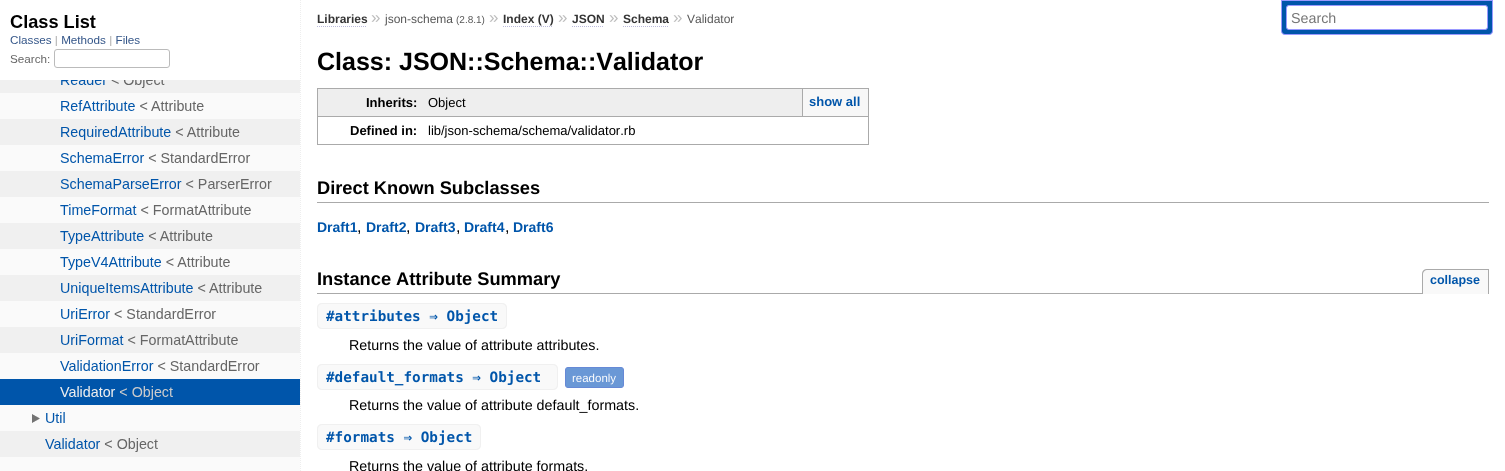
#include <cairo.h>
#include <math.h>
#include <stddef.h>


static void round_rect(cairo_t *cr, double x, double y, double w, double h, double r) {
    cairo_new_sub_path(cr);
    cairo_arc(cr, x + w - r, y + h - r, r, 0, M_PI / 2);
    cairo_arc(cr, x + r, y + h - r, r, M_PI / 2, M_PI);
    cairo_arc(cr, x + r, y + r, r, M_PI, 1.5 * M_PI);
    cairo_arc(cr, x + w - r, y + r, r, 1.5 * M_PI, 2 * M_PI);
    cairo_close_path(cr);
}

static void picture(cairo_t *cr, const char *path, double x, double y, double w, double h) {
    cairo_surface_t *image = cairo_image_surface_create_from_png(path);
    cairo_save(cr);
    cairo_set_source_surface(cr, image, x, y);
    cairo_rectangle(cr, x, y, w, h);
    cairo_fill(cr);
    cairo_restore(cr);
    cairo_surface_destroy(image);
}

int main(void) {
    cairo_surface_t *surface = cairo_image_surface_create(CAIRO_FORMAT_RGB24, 1505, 471);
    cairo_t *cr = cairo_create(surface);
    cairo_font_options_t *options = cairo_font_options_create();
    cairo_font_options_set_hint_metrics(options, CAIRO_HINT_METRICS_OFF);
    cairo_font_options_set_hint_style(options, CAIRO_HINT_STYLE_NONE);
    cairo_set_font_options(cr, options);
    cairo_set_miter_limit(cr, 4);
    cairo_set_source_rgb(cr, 1, 1, 1);
    cairo_paint(cr);
    cairo_new_path(cr);
    cairo_move_to(cr, 300.5, 0);
    cairo_line_to(cr, 300.5, 471);
    cairo_set_source_rgb(cr, 0.933, 0.933, 0.933);
    cairo_set_line_width(cr, 1);
    cairo_set_dash(cr, (double[]){1, 1}, 2, 0);
    cairo_stroke(cr);
    picture(cr, "img1.png", 0, 15, 300, 456);
    cairo_select_font_face(cr, "Liberation Sans", CAIRO_FONT_SLANT_NORMAL, CAIRO_FONT_WEIGHT_BOLD);
    cairo_set_font_size(cr, 12);
    cairo_set_source_rgb(cr, 0.2, 0.2, 0.2);
    cairo_move_to(cr, 317, 23);
    cairo_show_text(cr, "Libraries");
    cairo_new_path(cr);
    cairo_move_to(cr, 317, 26.5);
    cairo_line_to(cr, 367, 26.5);
    cairo_set_source_rgb(cr, 0.733, 0.733, 0.867);
    cairo_stroke(cr);
    cairo_select_font_face(cr, "Liberation Sans", CAIRO_FONT_SLANT_NORMAL, CAIRO_FONT_WEIGHT_NORMAL);
    cairo_set_font_size(cr, 17);
    cairo_set_source_rgb(cr, 0.733, 0.733, 0.733);
    cairo_move_to(cr, 371, 23);
    cairo_show_text(cr, "»");
    cairo_set_font_size(cr, 12);
    cairo_set_source_rgb(cr, 0.333, 0.333, 0.333);
    cairo_move_to(cr, 385, 23);
    cairo_show_text(cr, "json-schema");
    cairo_set_font_size(cr, 10);
    cairo_move_to(cr, 456, 23);
    cairo_show_text(cr, "(2.8.1)");
    cairo_set_font_size(cr, 17);
    cairo_set_source_rgb(cr, 0.733, 0.733, 0.733);
    cairo_move_to(cr, 489, 23);
    cairo_show_text(cr, "»");
    cairo_select_font_face(cr, "Liberation Sans", CAIRO_FONT_SLANT_NORMAL, CAIRO_FONT_WEIGHT_BOLD);
    cairo_set_font_size(cr, 12);
    cairo_set_source_rgb(cr, 0.2, 0.2, 0.2);
    cairo_move_to(cr, 503, 23);
    cairo_show_text(cr, "Index (V)");
    cairo_new_path(cr);
    cairo_move_to(cr, 503, 26.5);
    cairo_line_to(cr, 553, 26.5);
    cairo_set_source_rgb(cr, 0.733, 0.733, 0.867);
    cairo_stroke(cr);
    cairo_select_font_face(cr, "Liberation Sans", CAIRO_FONT_SLANT_NORMAL, CAIRO_FONT_WEIGHT_NORMAL);
    cairo_set_font_size(cr, 17);
    cairo_set_source_rgb(cr, 0.733, 0.733, 0.733);
    cairo_move_to(cr, 558, 23);
    cairo_show_text(cr, "»");
    cairo_select_font_face(cr, "Liberation Sans", CAIRO_FONT_SLANT_NORMAL, CAIRO_FONT_WEIGHT_BOLD);
    cairo_set_font_size(cr, 12);
    cairo_set_source_rgb(cr, 0.2, 0.2, 0.2);
    cairo_move_to(cr, 572, 23);
    cairo_show_text(cr, "JSON");
    cairo_new_path(cr);
    cairo_move_to(cr, 572, 26.5);
    cairo_line_to(cr, 604, 26.5);
    cairo_set_source_rgb(cr, 0.733, 0.733, 0.867);
    cairo_stroke(cr);
    cairo_select_font_face(cr, "Liberation Sans", CAIRO_FONT_SLANT_NORMAL, CAIRO_FONT_WEIGHT_NORMAL);
    cairo_set_font_size(cr, 17);
    cairo_set_source_rgb(cr, 0.733, 0.733, 0.733);
    cairo_move_to(cr, 609, 23);
    cairo_show_text(cr, "»");
    cairo_select_font_face(cr, "Liberation Sans", CAIRO_FONT_SLANT_NORMAL, CAIRO_FONT_WEIGHT_BOLD);
    cairo_set_font_size(cr, 12);
    cairo_set_source_rgb(cr, 0.2, 0.2, 0.2);
    cairo_move_to(cr, 623, 23);
    cairo_show_text(cr, "Schema");
    cairo_new_path(cr);
    cairo_move_to(cr, 623, 26.5);
    cairo_line_to(cr, 668, 26.5);
    cairo_set_source_rgb(cr, 0.733, 0.733, 0.867);
    cairo_stroke(cr);
    cairo_select_font_face(cr, "Liberation Sans", CAIRO_FONT_SLANT_NORMAL, CAIRO_FONT_WEIGHT_NORMAL);
    cairo_set_font_size(cr, 17);
    cairo_set_source_rgb(cr, 0.733, 0.733, 0.733);
    cairo_move_to(cr, 673, 23);
    cairo_show_text(cr, "»");
    cairo_set_font_size(cr, 12);
    cairo_set_source_rgb(cr, 0.333, 0.333, 0.333);
    cairo_move_to(cr, 687, 23);
    cairo_show_text(cr, "Validator");
    cairo_set_source_rgb(cr, 0, 0.333, 0.667);
    cairo_new_path(cr);
    cairo_move_to(cr, 1281.5, 0.5);
    cairo_line_to(cr, 1492.5, 0.5);
    cairo_line_to(cr, 1492.5, 31);
    cairo_curve_to(cr, 1492.5, 33, 1491, 34.5, 1489, 34.5);
    cairo_line_to(cr, 1285, 34.5);
    cairo_curve_to(cr, 1283, 34.5, 1281.5, 33, 1281.5, 31);
    cairo_close_path(cr);
    cairo_fill_preserve(cr);
    cairo_set_source_rgb(cr, 0.6, 0.6, 1);
    cairo_set_dash(cr, NULL, 0, 0);
    cairo_stroke(cr);
    cairo_set_source_rgb(cr, 1, 1, 1);
    round_rect(cr, 1286.5, 5.5, 201, 24, 2.5);
    cairo_fill_preserve(cr);
    cairo_set_source_rgb(cr, 0.6, 0.6, 1);
    cairo_stroke(cr);
    cairo_set_font_size(cr, 14.3);
    cairo_set_source_rgb(cr, 0.459, 0.459, 0.459);
    cairo_move_to(cr, 1291, 23);
    cairo_show_text(cr, "Search");
    cairo_select_font_face(cr, "Liberation Sans", CAIRO_FONT_SLANT_NORMAL, CAIRO_FONT_WEIGHT_BOLD);
    cairo_set_font_size(cr, 25);
    cairo_set_source_rgb(cr, 0, 0, 0);
    cairo_move_to(cr, 317, 70);
    cairo_show_text(cr, "Class: JSON::Schema::Validator");
    cairo_set_source_rgb(cr, 0.933, 0.933, 0.933);
    cairo_rectangle(cr, 318, 89, 484, 27);
    cairo_fill(cr);
    cairo_set_source_rgb(cr, 0.667, 0.667, 0.667);
    cairo_rectangle(cr, 317, 88, 552, 1);
    cairo_fill(cr);
    cairo_rectangle(cr, 317, 88, 1, 28);
    cairo_fill(cr);
    cairo_set_font_size(cr, 13);
    cairo_set_source_rgb(cr, 0, 0, 0);
    cairo_move_to(cr, 366, 107);
    cairo_show_text(cr, "Inherits:");
    cairo_set_source_rgb(cr, 0.667, 0.667, 0.667);
    cairo_rectangle(cr, 317, 116, 552, 1);
    cairo_fill(cr);
    cairo_rectangle(cr, 868, 88, 1, 57);
    cairo_fill(cr);
    cairo_select_font_face(cr, "Liberation Sans", CAIRO_FONT_SLANT_NORMAL, CAIRO_FONT_WEIGHT_NORMAL);
    cairo_set_source_rgb(cr, 0, 0, 0);
    cairo_move_to(cr, 428, 107);
    cairo_show_text(cr, "Object");
    cairo_set_source_rgb(cr, 0.965, 0.965, 0.965);
    cairo_rectangle(cr, 803, 89, 65, 27);
    cairo_fill(cr);
    cairo_set_source_rgb(cr, 0.667, 0.667, 0.667);
    cairo_rectangle(cr, 802, 89, 1, 27);
    cairo_fill(cr);
    cairo_select_font_face(cr, "Liberation Sans", CAIRO_FONT_SLANT_NORMAL, CAIRO_FONT_WEIGHT_BOLD);
    cairo_set_source_rgb(cr, 0, 0.333, 0.667);
    cairo_move_to(cr, 809, 106);
    cairo_show_text(cr, "show all");
    cairo_set_source_rgb(cr, 0.667, 0.667, 0.667);
    cairo_rectangle(cr, 317, 144, 111, 1);
    cairo_fill(cr);
    cairo_rectangle(cr, 317, 116, 1, 29);
    cairo_fill(cr);
    cairo_set_source_rgb(cr, 0, 0, 0);
    cairo_move_to(cr, 350, 135);
    cairo_show_text(cr, "Defined in:");
    cairo_set_source_rgb(cr, 0.667, 0.667, 0.667);
    cairo_rectangle(cr, 428, 144, 441, 1);
    cairo_fill(cr);
    cairo_select_font_face(cr, "Liberation Sans", CAIRO_FONT_SLANT_NORMAL, CAIRO_FONT_WEIGHT_NORMAL);
    cairo_set_source_rgb(cr, 0, 0, 0);
    cairo_move_to(cr, 428, 135);
    cairo_show_text(cr, "lib/json-schema/schema/validator.rb");
    cairo_set_source_rgb(cr, 0.667, 0.667, 0.667);
    cairo_rectangle(cr, 317, 202, 1172, 1);
    cairo_fill(cr);
    cairo_select_font_face(cr, "Liberation Sans", CAIRO_FONT_SLANT_NORMAL, CAIRO_FONT_WEIGHT_BOLD);
    cairo_set_font_size(cr, 18.25);
    cairo_set_source_rgb(cr, 0, 0, 0);
    cairo_move_to(cr, 317, 194);
    cairo_show_text(cr, "Direct Known Subclasses");
    cairo_set_font_size(cr, 14);
    cairo_set_source_rgb(cr, 0, 0.333, 0.667);
    cairo_move_to(cr, 317, 232);
    cairo_show_text(cr, "Draft1");
    cairo_select_font_face(cr, "Liberation Sans", CAIRO_FONT_SLANT_NORMAL, CAIRO_FONT_WEIGHT_NORMAL);
    cairo_set_font_size(cr, 16);
    cairo_set_source_rgb(cr, 0, 0, 0);
    cairo_move_to(cr, 357, 232);
    cairo_show_text(cr, ",");
    cairo_select_font_face(cr, "Liberation Sans", CAIRO_FONT_SLANT_NORMAL, CAIRO_FONT_WEIGHT_BOLD);
    cairo_set_font_size(cr, 14);
    cairo_set_source_rgb(cr, 0, 0.333, 0.667);
    cairo_move_to(cr, 366, 232);
    cairo_show_text(cr, "Draft2");
    cairo_select_font_face(cr, "Liberation Sans", CAIRO_FONT_SLANT_NORMAL, CAIRO_FONT_WEIGHT_NORMAL);
    cairo_set_font_size(cr, 16);
    cairo_set_source_rgb(cr, 0, 0, 0);
    cairo_move_to(cr, 406, 232);
    cairo_show_text(cr, ",");
    cairo_select_font_face(cr, "Liberation Sans", CAIRO_FONT_SLANT_NORMAL, CAIRO_FONT_WEIGHT_BOLD);
    cairo_set_font_size(cr, 14);
    cairo_set_source_rgb(cr, 0, 0.333, 0.667);
    cairo_move_to(cr, 415, 232);
    cairo_show_text(cr, "Draft3");
    cairo_select_font_face(cr, "Liberation Sans", CAIRO_FONT_SLANT_NORMAL, CAIRO_FONT_WEIGHT_NORMAL);
    cairo_set_font_size(cr, 16);
    cairo_set_source_rgb(cr, 0, 0, 0);
    cairo_move_to(cr, 456, 232);
    cairo_show_text(cr, ",");
    cairo_select_font_face(cr, "Liberation Sans", CAIRO_FONT_SLANT_NORMAL, CAIRO_FONT_WEIGHT_BOLD);
    cairo_set_font_size(cr, 14);
    cairo_set_source_rgb(cr, 0, 0.333, 0.667);
    cairo_move_to(cr, 464, 232);
    cairo_show_text(cr, "Draft4");
    cairo_select_font_face(cr, "Liberation Sans", CAIRO_FONT_SLANT_NORMAL, CAIRO_FONT_WEIGHT_NORMAL);
    cairo_set_font_size(cr, 16);
    cairo_set_source_rgb(cr, 0, 0, 0);
    cairo_move_to(cr, 505, 232);
    cairo_show_text(cr, ",");
    cairo_select_font_face(cr, "Liberation Sans", CAIRO_FONT_SLANT_NORMAL, CAIRO_FONT_WEIGHT_BOLD);
    cairo_set_font_size(cr, 14);
    cairo_set_source_rgb(cr, 0, 0.333, 0.667);
    cairo_move_to(cr, 513, 232);
    cairo_show_text(cr, "Draft6");
    cairo_set_source_rgb(cr, 0.667, 0.667, 0.667);
    cairo_rectangle(cr, 317, 293, 1105, 1);
    cairo_fill(cr);
    cairo_set_font_size(cr, 18.25);
    cairo_set_source_rgb(cr, 0, 0, 0);
    cairo_move_to(cr, 317, 285);
    cairo_show_text(cr, "Instance Attribute Summary");
    cairo_set_source_rgb(cr, 0.973, 0.973, 0.973);
    cairo_new_path(cr);
    cairo_move_to(cr, 1427, 269);
    cairo_line_to(cr, 1489, 269);
    cairo_line_to(cr, 1489, 294);
    cairo_line_to(cr, 1422, 294);
    cairo_line_to(cr, 1422, 274);
    cairo_curve_to(cr, 1422, 271, 1424, 269, 1427, 269);
    cairo_close_path(cr);
    cairo_fill(cr);
    cairo_set_source_rgb(cr, 0.667, 0.667, 0.667);
    cairo_set_fill_rule(cr, CAIRO_FILL_RULE_EVEN_ODD);
    cairo_new_path(cr);
    cairo_move_to(cr, 1427, 269);
    cairo_line_to(cr, 1489, 269);
    cairo_line_to(cr, 1489, 294);
    cairo_line_to(cr, 1422, 294);
    cairo_line_to(cr, 1422, 274);
    cairo_curve_to(cr, 1422, 271, 1424, 269, 1427, 269);
    cairo_close_path(cr);
    cairo_move_to(cr, 1427, 270);
    cairo_line_to(cr, 1488, 270);
    cairo_line_to(cr, 1488, 294);
    cairo_line_to(cr, 1423, 294);
    cairo_line_to(cr, 1423, 274);
    cairo_curve_to(cr, 1423, 272, 1425, 270, 1427, 270);
    cairo_close_path(cr);
    cairo_fill(cr);
    cairo_set_font_size(cr, 12.5);
    cairo_set_source_rgb(cr, 0, 0.333, 0.667);
    cairo_move_to(cr, 1430, 284);
    cairo_show_text(cr, "collapse");
    cairo_set_source_rgb(cr, 0.973, 0.973, 0.973);
    cairo_new_path(cr);
    cairo_move_to(cr, 322, 303);
    cairo_line_to(cr, 334, 303);
    cairo_line_to(cr, 334, 329);
    cairo_line_to(cr, 322, 329);
    cairo_curve_to(cr, 319, 329, 317, 327, 317, 324);
    cairo_line_to(cr, 317, 308);
    cairo_curve_to(cr, 317, 305, 319, 303, 322, 303);
    cairo_close_path(cr);
    cairo_fill(cr);
    cairo_set_source_rgb(cr, 0.941, 0.941, 0.941);
    cairo_new_path(cr);
    cairo_move_to(cr, 322, 303);
    cairo_line_to(cr, 334, 303);
    cairo_line_to(cr, 334, 329);
    cairo_line_to(cr, 322, 329);
    cairo_curve_to(cr, 319, 329, 317, 327, 317, 324);
    cairo_line_to(cr, 317, 308);
    cairo_curve_to(cr, 317, 305, 319, 303, 322, 303);
    cairo_close_path(cr);
    cairo_move_to(cr, 322, 304);
    cairo_line_to(cr, 334, 304);
    cairo_line_to(cr, 334, 328);
    cairo_line_to(cr, 322, 328);
    cairo_curve_to(cr, 320, 328, 318, 326, 318, 324);
    cairo_line_to(cr, 318, 308);
    cairo_curve_to(cr, 318, 306, 320, 304, 322, 304);
    cairo_close_path(cr);
    cairo_fill(cr);
    cairo_set_source_rgb(cr, 0.973, 0.973, 0.973);
    cairo_rectangle(cr, 334, 304, 86, 24);
    cairo_fill(cr);
    cairo_new_path(cr);
    cairo_move_to(cr, 420, 303);
    cairo_line_to(cr, 502, 303);
    cairo_curve_to(cr, 505, 303, 507, 305, 507, 308);
    cairo_line_to(cr, 507, 324);
    cairo_curve_to(cr, 507, 327, 505, 329, 502, 329);
    cairo_line_to(cr, 420, 329);
    cairo_close_path(cr);
    cairo_fill(cr);
    cairo_set_source_rgb(cr, 0.941, 0.941, 0.941);
    cairo_new_path(cr);
    cairo_move_to(cr, 420, 303);
    cairo_line_to(cr, 502, 303);
    cairo_curve_to(cr, 505, 303, 507, 305, 507, 308);
    cairo_line_to(cr, 507, 324);
    cairo_curve_to(cr, 507, 327, 505, 329, 502, 329);
    cairo_line_to(cr, 420, 329);
    cairo_close_path(cr);
    cairo_move_to(cr, 420, 304);
    cairo_line_to(cr, 502, 304);
    cairo_curve_to(cr, 504, 304, 506, 306, 506, 308);
    cairo_line_to(cr, 506, 324);
    cairo_curve_to(cr, 506, 326, 504, 328, 502, 328);
    cairo_line_to(cr, 420, 328);
    cairo_close_path(cr);
    cairo_fill(cr);
    cairo_select_font_face(cr, "DejaVu Sans Mono", CAIRO_FONT_SLANT_NORMAL, CAIRO_FONT_WEIGHT_BOLD);
    cairo_set_font_size(cr, 14.3);
    cairo_set_source_rgb(cr, 0, 0.333, 0.667);
    cairo_move_to(cr, 326, 321);
    cairo_show_text(cr, "#attributes ⇒ Object");
    cairo_set_source_rgb(cr, 0.941, 0.941, 0.941);
    cairo_rectangle(cr, 334, 303, 86, 1);
    cairo_fill(cr);
    cairo_rectangle(cr, 334, 328, 86, 1);
    cairo_fill(cr);
    cairo_select_font_face(cr, "Liberation Sans", CAIRO_FONT_SLANT_NORMAL, CAIRO_FONT_WEIGHT_NORMAL);
    cairo_set_source_rgb(cr, 0, 0, 0);
    cairo_move_to(cr, 349, 350);
    cairo_show_text(cr, "Returns the value of attribute attributes.");
    cairo_set_source_rgb(cr, 0.973, 0.973, 0.973);
    cairo_new_path(cr);
    cairo_move_to(cr, 322, 364);
    cairo_line_to(cr, 334, 364);
    cairo_line_to(cr, 334, 390);
    cairo_line_to(cr, 322, 390);
    cairo_curve_to(cr, 319, 390, 317, 388, 317, 385);
    cairo_line_to(cr, 317, 369);
    cairo_curve_to(cr, 317, 366, 319, 364, 322, 364);
    cairo_close_path(cr);
    cairo_fill(cr);
    cairo_set_source_rgb(cr, 0.941, 0.941, 0.941);
    cairo_new_path(cr);
    cairo_move_to(cr, 322, 364);
    cairo_line_to(cr, 334, 364);
    cairo_line_to(cr, 334, 390);
    cairo_line_to(cr, 322, 390);
    cairo_curve_to(cr, 319, 390, 317, 388, 317, 385);
    cairo_line_to(cr, 317, 369);
    cairo_curve_to(cr, 317, 366, 319, 364, 322, 364);
    cairo_close_path(cr);
    cairo_move_to(cr, 322, 365);
    cairo_line_to(cr, 334, 365);
    cairo_line_to(cr, 334, 389);
    cairo_line_to(cr, 322, 389);
    cairo_curve_to(cr, 320, 389, 318, 387, 318, 385);
    cairo_line_to(cr, 318, 369);
    cairo_curve_to(cr, 318, 367, 320, 365, 322, 365);
    cairo_close_path(cr);
    cairo_fill(cr);
    cairo_set_source_rgb(cr, 0.973, 0.973, 0.973);
    cairo_rectangle(cr, 334, 365, 129, 24);
    cairo_fill(cr);
    cairo_new_path(cr);
    cairo_move_to(cr, 463, 364);
    cairo_line_to(cr, 553, 364);
    cairo_curve_to(cr, 556, 364, 558, 366, 558, 369);
    cairo_line_to(cr, 558, 385);
    cairo_curve_to(cr, 558, 388, 556, 390, 553, 390);
    cairo_line_to(cr, 463, 390);
    cairo_close_path(cr);
    cairo_fill(cr);
    cairo_set_source_rgb(cr, 0.941, 0.941, 0.941);
    cairo_new_path(cr);
    cairo_move_to(cr, 463, 364);
    cairo_line_to(cr, 553, 364);
    cairo_curve_to(cr, 556, 364, 558, 366, 558, 369);
    cairo_line_to(cr, 558, 385);
    cairo_curve_to(cr, 558, 388, 556, 390, 553, 390);
    cairo_line_to(cr, 463, 390);
    cairo_close_path(cr);
    cairo_move_to(cr, 463, 365);
    cairo_line_to(cr, 553, 365);
    cairo_curve_to(cr, 555, 365, 557, 367, 557, 369);
    cairo_line_to(cr, 557, 385);
    cairo_curve_to(cr, 557, 387, 555, 389, 553, 389);
    cairo_line_to(cr, 463, 389);
    cairo_close_path(cr);
    cairo_fill(cr);
    cairo_select_font_face(cr, "DejaVu Sans Mono", CAIRO_FONT_SLANT_NORMAL, CAIRO_FONT_WEIGHT_BOLD);
    cairo_set_source_rgb(cr, 0, 0.333, 0.667);
    cairo_move_to(cr, 326, 382);
    cairo_show_text(cr, "#default_formats ⇒ Object");
    cairo_set_source_rgb(cr, 0.941, 0.941, 0.941);
    cairo_rectangle(cr, 334, 364, 129, 1);
    cairo_fill(cr);
    cairo_rectangle(cr, 334, 389, 129, 1);
    cairo_fill(cr);
    cairo_set_source_rgb(cr, 0.416, 0.596, 0.839);
    round_rect(cr, 565.5, 367.5, 58, 20, 2.5);
    cairo_fill_preserve(cr);
    cairo_set_source_rgb(cr, 0.4, 0.537, 0.839);
    cairo_stroke(cr);
    cairo_select_font_face(cr, "Liberation Sans", CAIRO_FONT_SLANT_NORMAL, CAIRO_FONT_WEIGHT_NORMAL);
    cairo_set_font_size(cr, 11.5);
    cairo_set_source_rgb(cr, 1, 1, 1);
    cairo_move_to(cr, 572, 382);
    cairo_show_text(cr, "readonly");
    cairo_set_font_size(cr, 14.3);
    cairo_set_source_rgb(cr, 0, 0, 0);
    cairo_move_to(cr, 349, 410);
    cairo_show_text(cr, "Returns the value of attribute default_formats.");
    cairo_set_source_rgb(cr, 0.973, 0.973, 0.973);
    cairo_new_path(cr);
    cairo_move_to(cr, 322, 424);
    cairo_line_to(cr, 334, 424);
    cairo_line_to(cr, 334, 450);
    cairo_line_to(cr, 322, 450);
    cairo_curve_to(cr, 319, 450, 317, 448, 317, 445);
    cairo_line_to(cr, 317, 429);
    cairo_curve_to(cr, 317, 426, 319, 424, 322, 424);
    cairo_close_path(cr);
    cairo_fill(cr);
    cairo_set_source_rgb(cr, 0.941, 0.941, 0.941);
    cairo_new_path(cr);
    cairo_move_to(cr, 322, 424);
    cairo_line_to(cr, 334, 424);
    cairo_line_to(cr, 334, 450);
    cairo_line_to(cr, 322, 450);
    cairo_curve_to(cr, 319, 450, 317, 448, 317, 445);
    cairo_line_to(cr, 317, 429);
    cairo_curve_to(cr, 317, 426, 319, 424, 322, 424);
    cairo_close_path(cr);
    cairo_move_to(cr, 322, 425);
    cairo_line_to(cr, 334, 425);
    cairo_line_to(cr, 334, 449);
    cairo_line_to(cr, 322, 449);
    cairo_curve_to(cr, 320, 449, 318, 447, 318, 445);
    cairo_line_to(cr, 318, 429);
    cairo_curve_to(cr, 318, 427, 320, 425, 322, 425);
    cairo_close_path(cr);
    cairo_fill(cr);
    cairo_set_source_rgb(cr, 0.973, 0.973, 0.973);
    cairo_rectangle(cr, 334, 425, 60, 24);
    cairo_fill(cr);
    cairo_new_path(cr);
    cairo_move_to(cr, 394, 424);
    cairo_line_to(cr, 476, 424);
    cairo_curve_to(cr, 479, 424, 481, 426, 481, 429);
    cairo_line_to(cr, 481, 445);
    cairo_curve_to(cr, 481, 448, 479, 450, 476, 450);
    cairo_line_to(cr, 394, 450);
    cairo_close_path(cr);
    cairo_fill(cr);
    cairo_set_source_rgb(cr, 0.941, 0.941, 0.941);
    cairo_new_path(cr);
    cairo_move_to(cr, 394, 424);
    cairo_line_to(cr, 476, 424);
    cairo_curve_to(cr, 479, 424, 481, 426, 481, 429);
    cairo_line_to(cr, 481, 445);
    cairo_curve_to(cr, 481, 448, 479, 450, 476, 450);
    cairo_line_to(cr, 394, 450);
    cairo_close_path(cr);
    cairo_move_to(cr, 394, 425);
    cairo_line_to(cr, 476, 425);
    cairo_curve_to(cr, 478, 425, 480, 427, 480, 429);
    cairo_line_to(cr, 480, 445);
    cairo_curve_to(cr, 480, 447, 478, 449, 476, 449);
    cairo_line_to(cr, 394, 449);
    cairo_close_path(cr);
    cairo_fill(cr);
    cairo_select_font_face(cr, "DejaVu Sans Mono", CAIRO_FONT_SLANT_NORMAL, CAIRO_FONT_WEIGHT_BOLD);
    cairo_set_source_rgb(cr, 0, 0.333, 0.667);
    cairo_move_to(cr, 326, 442);
    cairo_show_text(cr, "#formats ⇒ Object");
    cairo_set_source_rgb(cr, 0.941, 0.941, 0.941);
    cairo_rectangle(cr, 334, 424, 60, 1);
    cairo_fill(cr);
    cairo_rectangle(cr, 334, 449, 60, 1);
    cairo_fill(cr);
    cairo_select_font_face(cr, "Liberation Sans", CAIRO_FONT_SLANT_NORMAL, CAIRO_FONT_WEIGHT_NORMAL);
    cairo_set_source_rgb(cr, 0, 0, 0);
    cairo_move_to(cr, 349, 471);
    cairo_show_text(cr, "Returns the value of attribute formats.");
    cairo_surface_write_to_png(surface, "page.png");
    cairo_font_options_destroy(options);
    cairo_destroy(cr);
    cairo_surface_destroy(surface);
    return 0;
}
